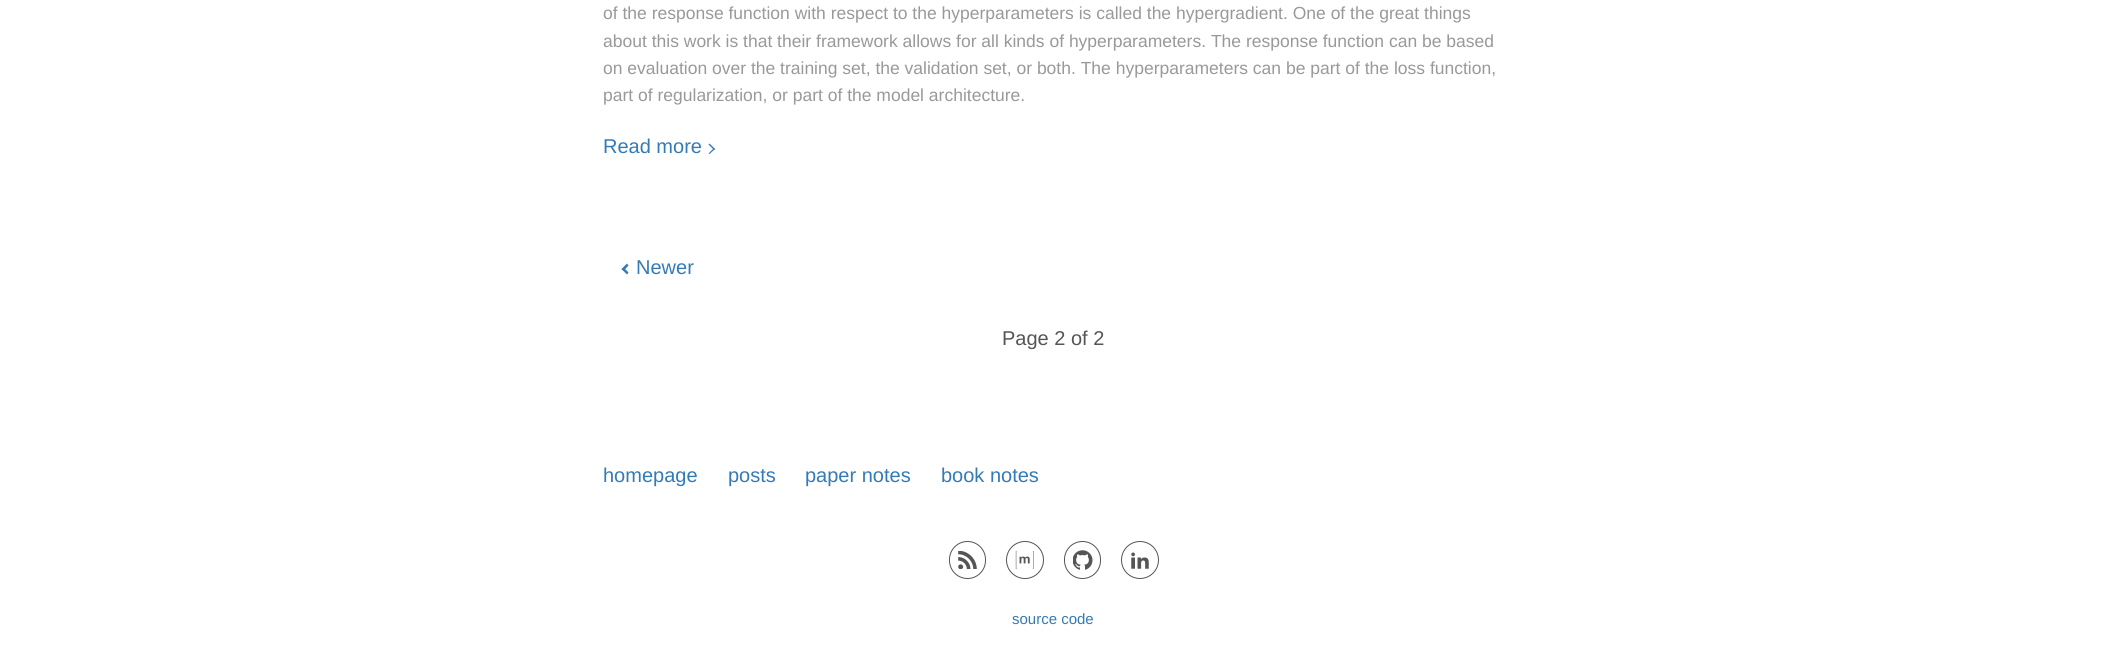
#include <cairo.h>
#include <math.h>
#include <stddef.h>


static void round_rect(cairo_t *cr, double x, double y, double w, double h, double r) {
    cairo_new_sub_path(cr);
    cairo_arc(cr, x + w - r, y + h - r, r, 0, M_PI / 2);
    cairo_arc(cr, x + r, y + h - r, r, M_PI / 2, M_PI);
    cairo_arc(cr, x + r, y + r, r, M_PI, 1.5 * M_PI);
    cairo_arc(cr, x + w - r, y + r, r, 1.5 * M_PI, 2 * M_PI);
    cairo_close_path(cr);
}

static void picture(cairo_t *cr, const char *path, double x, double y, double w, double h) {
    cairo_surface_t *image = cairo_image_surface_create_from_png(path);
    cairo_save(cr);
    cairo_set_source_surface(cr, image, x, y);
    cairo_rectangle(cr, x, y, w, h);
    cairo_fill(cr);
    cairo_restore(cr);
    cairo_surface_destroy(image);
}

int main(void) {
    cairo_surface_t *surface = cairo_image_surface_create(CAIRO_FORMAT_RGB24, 2106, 661);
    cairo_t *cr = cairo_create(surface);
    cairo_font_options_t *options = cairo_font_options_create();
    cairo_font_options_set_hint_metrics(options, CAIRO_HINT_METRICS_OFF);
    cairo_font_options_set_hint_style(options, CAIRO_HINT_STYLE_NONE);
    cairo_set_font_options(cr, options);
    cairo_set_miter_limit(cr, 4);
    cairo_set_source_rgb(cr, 1, 1, 1);
    cairo_paint(cr);
    cairo_select_font_face(cr, "Liberation Sans", CAIRO_FONT_SLANT_NORMAL, CAIRO_FONT_WEIGHT_NORMAL);
    cairo_set_font_size(cr, 17.5);
    cairo_set_source_rgb(cr, 0.6, 0.6, 0.6);
    cairo_move_to(cr, 603, 19);
    cairo_show_text(cr, "of the response function with respect to the hyperparameters is called the hypergradient. One of the great things");
    cairo_move_to(cr, 603, 47);
    cairo_show_text(cr, "about this work is that their framework allows for all kinds of hyperparameters. The response function can be based");
    cairo_move_to(cr, 603, 74);
    cairo_show_text(cr, "on evaluation over the training set, the validation set, or both. The hyperparameters can be part of the loss function,");
    cairo_move_to(cr, 603, 101);
    cairo_show_text(cr, "part of regularization, or part of the model architecture.");
    cairo_set_font_size(cr, 20);
    cairo_set_source_rgb(cr, 0.2, 0.478, 0.718);
    cairo_move_to(cr, 603, 153);
    cairo_show_text(cr, "Read more");
    cairo_new_path(cr);
    cairo_move_to(cr, 709.5, 143.5);
    cairo_line_to(cr, 715, 149);
    cairo_line_to(cr, 714, 150);
    cairo_line_to(cr, 708.5, 144.5);
    cairo_close_path(cr);
    cairo_fill(cr);
    cairo_new_path(cr);
    cairo_move_to(cr, 714, 148);
    cairo_line_to(cr, 715, 149);
    cairo_line_to(cr, 709.5, 154);
    cairo_line_to(cr, 708.5, 153.5);
    cairo_close_path(cr);
    cairo_fill(cr);
    cairo_new_path(cr);
    cairo_move_to(cr, 621.5, 269);
    cairo_line_to(cr, 627, 263.5);
    cairo_line_to(cr, 628.5, 265.5);
    cairo_line_to(cr, 623.5, 271);
    cairo_close_path(cr);
    cairo_fill(cr);
    cairo_new_path(cr);
    cairo_move_to(cr, 621.5, 269);
    cairo_line_to(cr, 623.5, 267.5);
    cairo_line_to(cr, 628.5, 272.5);
    cairo_line_to(cr, 627, 274.5);
    cairo_close_path(cr);
    cairo_fill(cr);
    cairo_move_to(cr, 636, 274);
    cairo_show_text(cr, "Newer");
    cairo_set_source_rgb(cr, 0.333, 0.333, 0.333);
    cairo_move_to(cr, 1002, 345);
    cairo_show_text(cr, "Page 2 of 2");
    cairo_set_source_rgb(cr, 0.2, 0.478, 0.718);
    cairo_move_to(cr, 603, 482);
    cairo_show_text(cr, "homepage");
    cairo_move_to(cr, 728, 482);
    cairo_show_text(cr, "posts");
    cairo_move_to(cr, 805, 482);
    cairo_show_text(cr, "paper notes");
    cairo_move_to(cr, 941, 482);
    cairo_show_text(cr, "book notes");
    round_rect(cr, 949.5, 541.5, 36, 37, 18);
    cairo_set_source_rgb(cr, 0.333, 0.333, 0.333);
    cairo_set_line_width(cr, 1);
    cairo_stroke(cr);
    picture(cr, "img1.png", 958, 551, 19, 18);
    cairo_arc(cr, 1025, 560, 18.5, 0, 2 * M_PI);
    cairo_stroke(cr);
    picture(cr, "img2.png", 1015, 551, 19, 18);
    round_rect(cr, 1064.5, 541.5, 36, 37, 18);
    cairo_stroke(cr);
    picture(cr, "img3.png", 1073, 550, 20, 20);
    cairo_arc(cr, 1140, 560, 18.5, 0, 2 * M_PI);
    cairo_stroke(cr);
    picture(cr, "img4.png", 1131, 552, 18, 17);
    cairo_set_font_size(cr, 15);
    cairo_set_source_rgb(cr, 0.2, 0.478, 0.718);
    cairo_move_to(cr, 1012, 624);
    cairo_show_text(cr, "source code");
    cairo_surface_write_to_png(surface, "page.png");
    cairo_font_options_destroy(options);
    cairo_destroy(cr);
    cairo_surface_destroy(surface);
    return 0;
}
